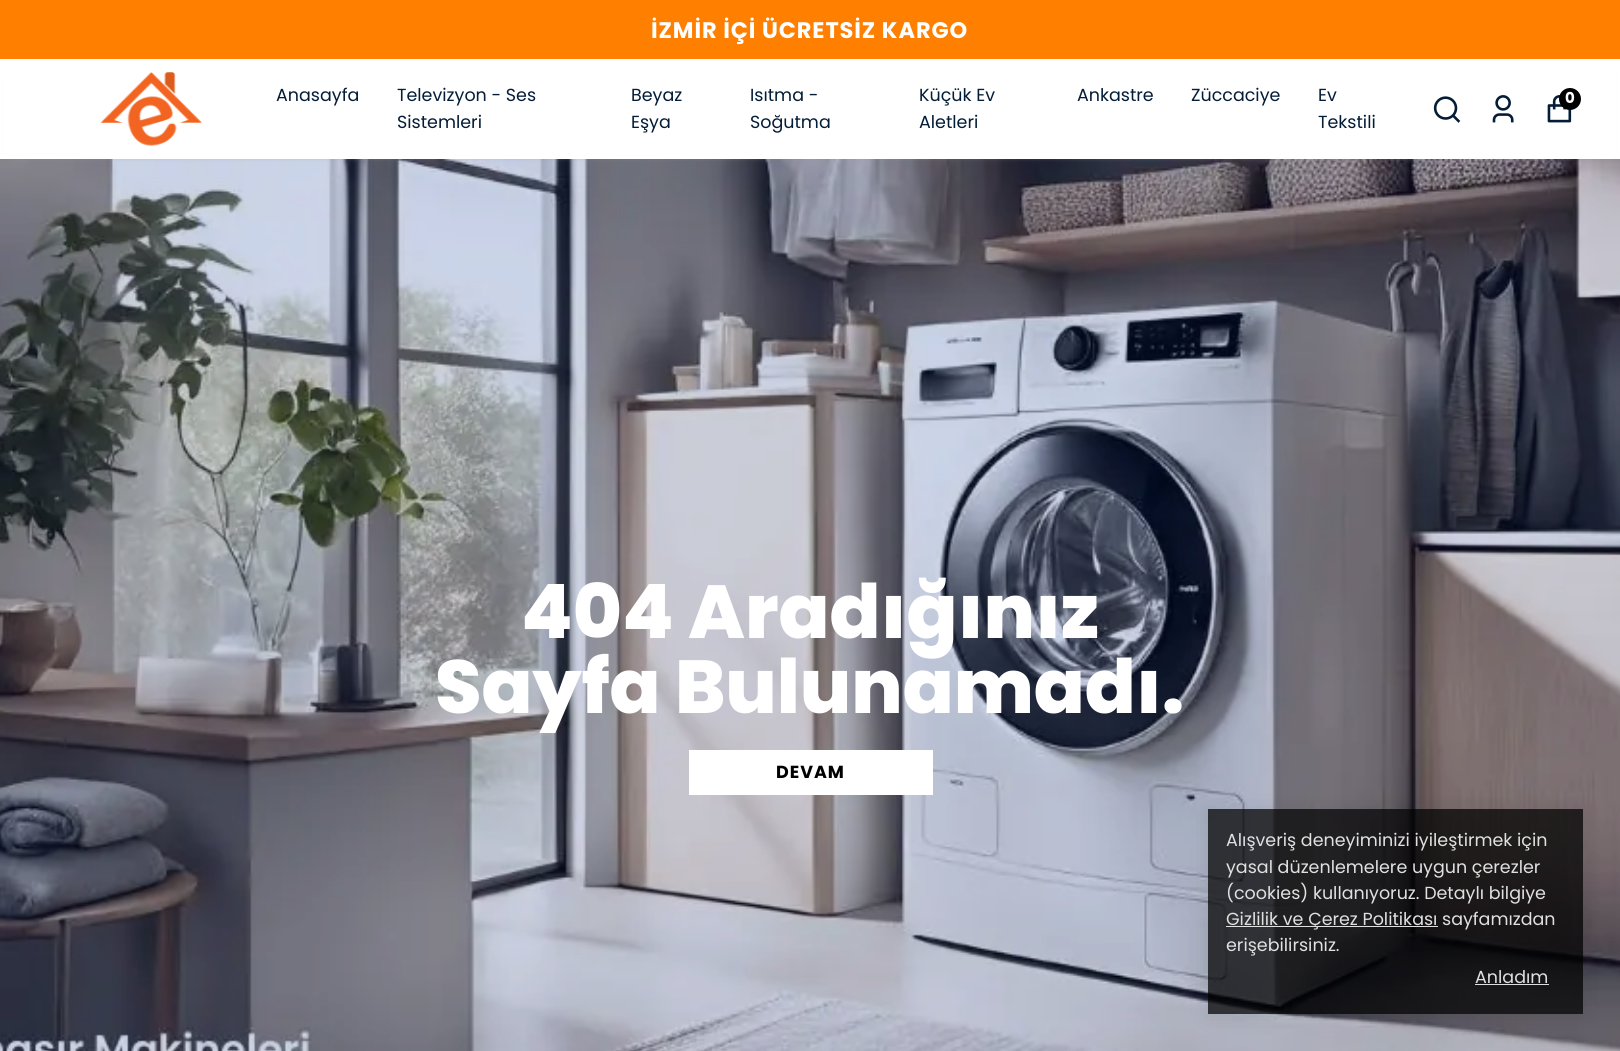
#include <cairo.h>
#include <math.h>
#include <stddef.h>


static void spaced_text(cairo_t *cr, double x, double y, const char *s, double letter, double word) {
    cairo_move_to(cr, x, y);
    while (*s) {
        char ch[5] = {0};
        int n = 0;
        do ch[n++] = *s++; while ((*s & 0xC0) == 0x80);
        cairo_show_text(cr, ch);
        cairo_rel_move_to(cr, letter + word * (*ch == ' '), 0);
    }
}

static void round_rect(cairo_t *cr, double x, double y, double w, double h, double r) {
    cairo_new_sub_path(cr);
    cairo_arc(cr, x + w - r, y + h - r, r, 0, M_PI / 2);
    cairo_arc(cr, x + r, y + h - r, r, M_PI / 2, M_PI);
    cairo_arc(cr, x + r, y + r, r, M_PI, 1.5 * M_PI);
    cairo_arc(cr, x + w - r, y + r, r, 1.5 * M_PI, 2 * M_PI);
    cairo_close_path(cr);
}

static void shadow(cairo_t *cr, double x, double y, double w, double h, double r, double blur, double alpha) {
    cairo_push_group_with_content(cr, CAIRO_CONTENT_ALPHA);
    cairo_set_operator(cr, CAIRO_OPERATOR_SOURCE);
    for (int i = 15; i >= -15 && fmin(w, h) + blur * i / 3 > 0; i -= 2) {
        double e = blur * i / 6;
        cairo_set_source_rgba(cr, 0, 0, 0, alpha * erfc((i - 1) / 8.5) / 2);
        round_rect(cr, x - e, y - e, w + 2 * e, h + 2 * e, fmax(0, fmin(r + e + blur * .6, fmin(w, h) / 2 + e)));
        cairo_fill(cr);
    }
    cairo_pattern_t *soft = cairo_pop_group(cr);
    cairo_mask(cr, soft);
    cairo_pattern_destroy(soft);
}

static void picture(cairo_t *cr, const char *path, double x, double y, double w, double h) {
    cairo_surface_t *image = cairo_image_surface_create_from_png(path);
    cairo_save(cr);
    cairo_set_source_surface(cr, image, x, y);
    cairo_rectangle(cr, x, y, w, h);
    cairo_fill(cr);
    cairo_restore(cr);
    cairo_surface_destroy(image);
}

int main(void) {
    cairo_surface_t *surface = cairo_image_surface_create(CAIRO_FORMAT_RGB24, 1620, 1051);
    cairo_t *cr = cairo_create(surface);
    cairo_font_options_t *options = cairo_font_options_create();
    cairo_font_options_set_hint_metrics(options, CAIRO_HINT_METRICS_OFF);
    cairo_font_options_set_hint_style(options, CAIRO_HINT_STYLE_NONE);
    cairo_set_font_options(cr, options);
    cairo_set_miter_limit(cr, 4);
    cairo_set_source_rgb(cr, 1, 1, 1);
    cairo_paint(cr);
    cairo_set_source_rgb(cr, 1, 0.498, 0);
    cairo_rectangle(cr, 0, 0, 1620, 59);
    cairo_fill(cr);
    cairo_select_font_face(cr, "Poppins", CAIRO_FONT_SLANT_NORMAL, CAIRO_FONT_WEIGHT_BOLD);
    cairo_set_font_size(cr, 22.5);
    cairo_set_source_rgb(cr, 1, 1, 1);
    spaced_text(cr, 651, 38, "İZMİR İÇİ ÜCRETSİZ KARGO", 0.9, 0);
    picture(cr, "img5.png", 0, 159, 1620, 892);
    cairo_set_source_rgb(cr, 0.596, 0.596, 0.596);
    shadow(cr, 9, 74, 1602, 82, 0, 3, 1);
    cairo_set_source_rgb(cr, 1, 1, 1);
    cairo_rectangle(cr, 3, 68, 1614, 91);
    cairo_fill(cr);
    picture(cr, "img1.png", 100, 72, 102, 74);
    cairo_select_font_face(cr, "Poppins", CAIRO_FONT_SLANT_NORMAL, CAIRO_FONT_WEIGHT_NORMAL);
    cairo_set_font_size(cr, 17.5);
    cairo_set_source_rgb(cr, 0.012, 0.11, 0.216);
    cairo_move_to(cr, 276, 101);
    cairo_show_text(cr, "Anasayfa");
    cairo_move_to(cr, 397, 101);
    cairo_show_text(cr, "Televizyon - Ses");
    cairo_move_to(cr, 397, 128);
    cairo_show_text(cr, "Sistemleri");
    cairo_move_to(cr, 631, 101);
    cairo_show_text(cr, "Beyaz");
    cairo_move_to(cr, 631, 128);
    cairo_show_text(cr, "Eşya");
    cairo_move_to(cr, 750, 101);
    cairo_show_text(cr, "Isıtma -");
    cairo_move_to(cr, 750, 128);
    cairo_show_text(cr, "Soğutma");
    cairo_move_to(cr, 919, 101);
    cairo_show_text(cr, "Küçük Ev");
    cairo_move_to(cr, 919, 128);
    cairo_show_text(cr, "Aletleri");
    cairo_move_to(cr, 1077, 101);
    cairo_show_text(cr, "Ankastre");
    cairo_move_to(cr, 1191, 101);
    cairo_show_text(cr, "Züccaciye");
    cairo_move_to(cr, 1318, 101);
    cairo_show_text(cr, "Ev");
    cairo_move_to(cr, 1318, 128);
    cairo_show_text(cr, "Tekstili");
    picture(cr, "img2.png", 1433, 96, 28, 27);
    picture(cr, "img3.png", 1492, 95, 22, 28);
    picture(cr, "img4.png", 1547, 95, 25, 28);
    cairo_set_source_rgb(cr, 0, 0, 0);
    cairo_arc(cr, 1570, 99, 11, 0, 2 * M_PI);
    cairo_fill(cr);
    cairo_select_font_face(cr, "Poppins", CAIRO_FONT_SLANT_NORMAL, CAIRO_FONT_WEIGHT_BOLD);
    cairo_set_font_size(cr, 15);
    cairo_set_source_rgb(cr, 1, 1, 1);
    cairo_move_to(cr, 1565, 103);
    cairo_show_text(cr, "0");
    cairo_save(cr);
    cairo_set_fill_rule(cr, CAIRO_FILL_RULE_EVEN_ODD);
    cairo_new_path(cr);
    cairo_move_to(cr, 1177, 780);
    cairo_line_to(cr, 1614, 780);
    cairo_line_to(cr, 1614, 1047);
    cairo_line_to(cr, 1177, 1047);
    cairo_close_path(cr);
    cairo_move_to(cr, 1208, 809);
    cairo_line_to(cr, 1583, 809);
    cairo_line_to(cr, 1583, 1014);
    cairo_line_to(cr, 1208, 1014);
    cairo_close_path(cr);
    cairo_clip(cr);
    cairo_set_source_rgb(cr, 0, 0, 0);
    shadow(cr, 1208, 811, 375, 205, 0, 10, 0.1);
    cairo_restore(cr);
    cairo_set_source_rgba(cr, 0, 0, 0, 0.73);
    cairo_rectangle(cr, 1208, 809, 375, 205);
    cairo_fill(cr);
    cairo_select_font_face(cr, "Poppins", CAIRO_FONT_SLANT_NORMAL, CAIRO_FONT_WEIGHT_NORMAL);
    cairo_set_font_size(cr, 17.5);
    cairo_set_source_rgb(cr, 0.878, 0.878, 0.878);
    cairo_move_to(cr, 1226, 846);
    cairo_show_text(cr, "Alışveriş deneyiminizi iyileştirmek için");
    cairo_move_to(cr, 1226, 873);
    cairo_show_text(cr, "yasal düzenlemelere uygun çerezler");
    cairo_move_to(cr, 1226, 899);
    cairo_show_text(cr, "(cookies) kullanıyoruz. Detaylı bilgiye");
    cairo_set_source_rgba(cr, 1, 1, 1, 0.86);
    cairo_rectangle(cr, 1226, 926, 212, 1);
    cairo_fill(cr);
    cairo_set_source_rgb(cr, 0.878, 0.878, 0.878);
    cairo_move_to(cr, 1226, 925);
    cairo_show_text(cr, "Gizlilik ve Çerez Politikası");
    cairo_move_to(cr, 1442, 925);
    cairo_show_text(cr, "sayfamızdan");
    cairo_move_to(cr, 1226, 951);
    cairo_show_text(cr, "erişebilirsiniz.");
    cairo_move_to(cr, 1475, 983);
    cairo_show_text(cr, "Anladım");
    cairo_set_source_rgb(cr, 0.875, 0.871, 0.875);
    cairo_rectangle(cr, 1475, 984, 74, 1);
    cairo_fill(cr);
    cairo_select_font_face(cr, "Poppins ExtraBold", CAIRO_FONT_SLANT_NORMAL, CAIRO_FONT_WEIGHT_NORMAL);
    cairo_set_font_size(cr, 75);
    cairo_set_source_rgb(cr, 1, 1, 1);
    cairo_move_to(cr, 521, 638);
    cairo_show_text(cr, "404 Aradığınız");
    cairo_move_to(cr, 435, 713);
    cairo_show_text(cr, "Sayfa Bulunamadı.");
    cairo_rectangle(cr, 689, 750, 244, 45);
    cairo_fill(cr);
    cairo_select_font_face(cr, "Poppins", CAIRO_FONT_SLANT_NORMAL, CAIRO_FONT_WEIGHT_BOLD);
    cairo_set_font_size(cr, 17.5);
    cairo_set_source_rgb(cr, 0, 0, 0);
    spaced_text(cr, 776, 778, "DEVAM", 1, 0);
    cairo_surface_write_to_png(surface, "page.png");
    cairo_font_options_destroy(options);
    cairo_destroy(cr);
    cairo_surface_destroy(surface);
    return 0;
}
